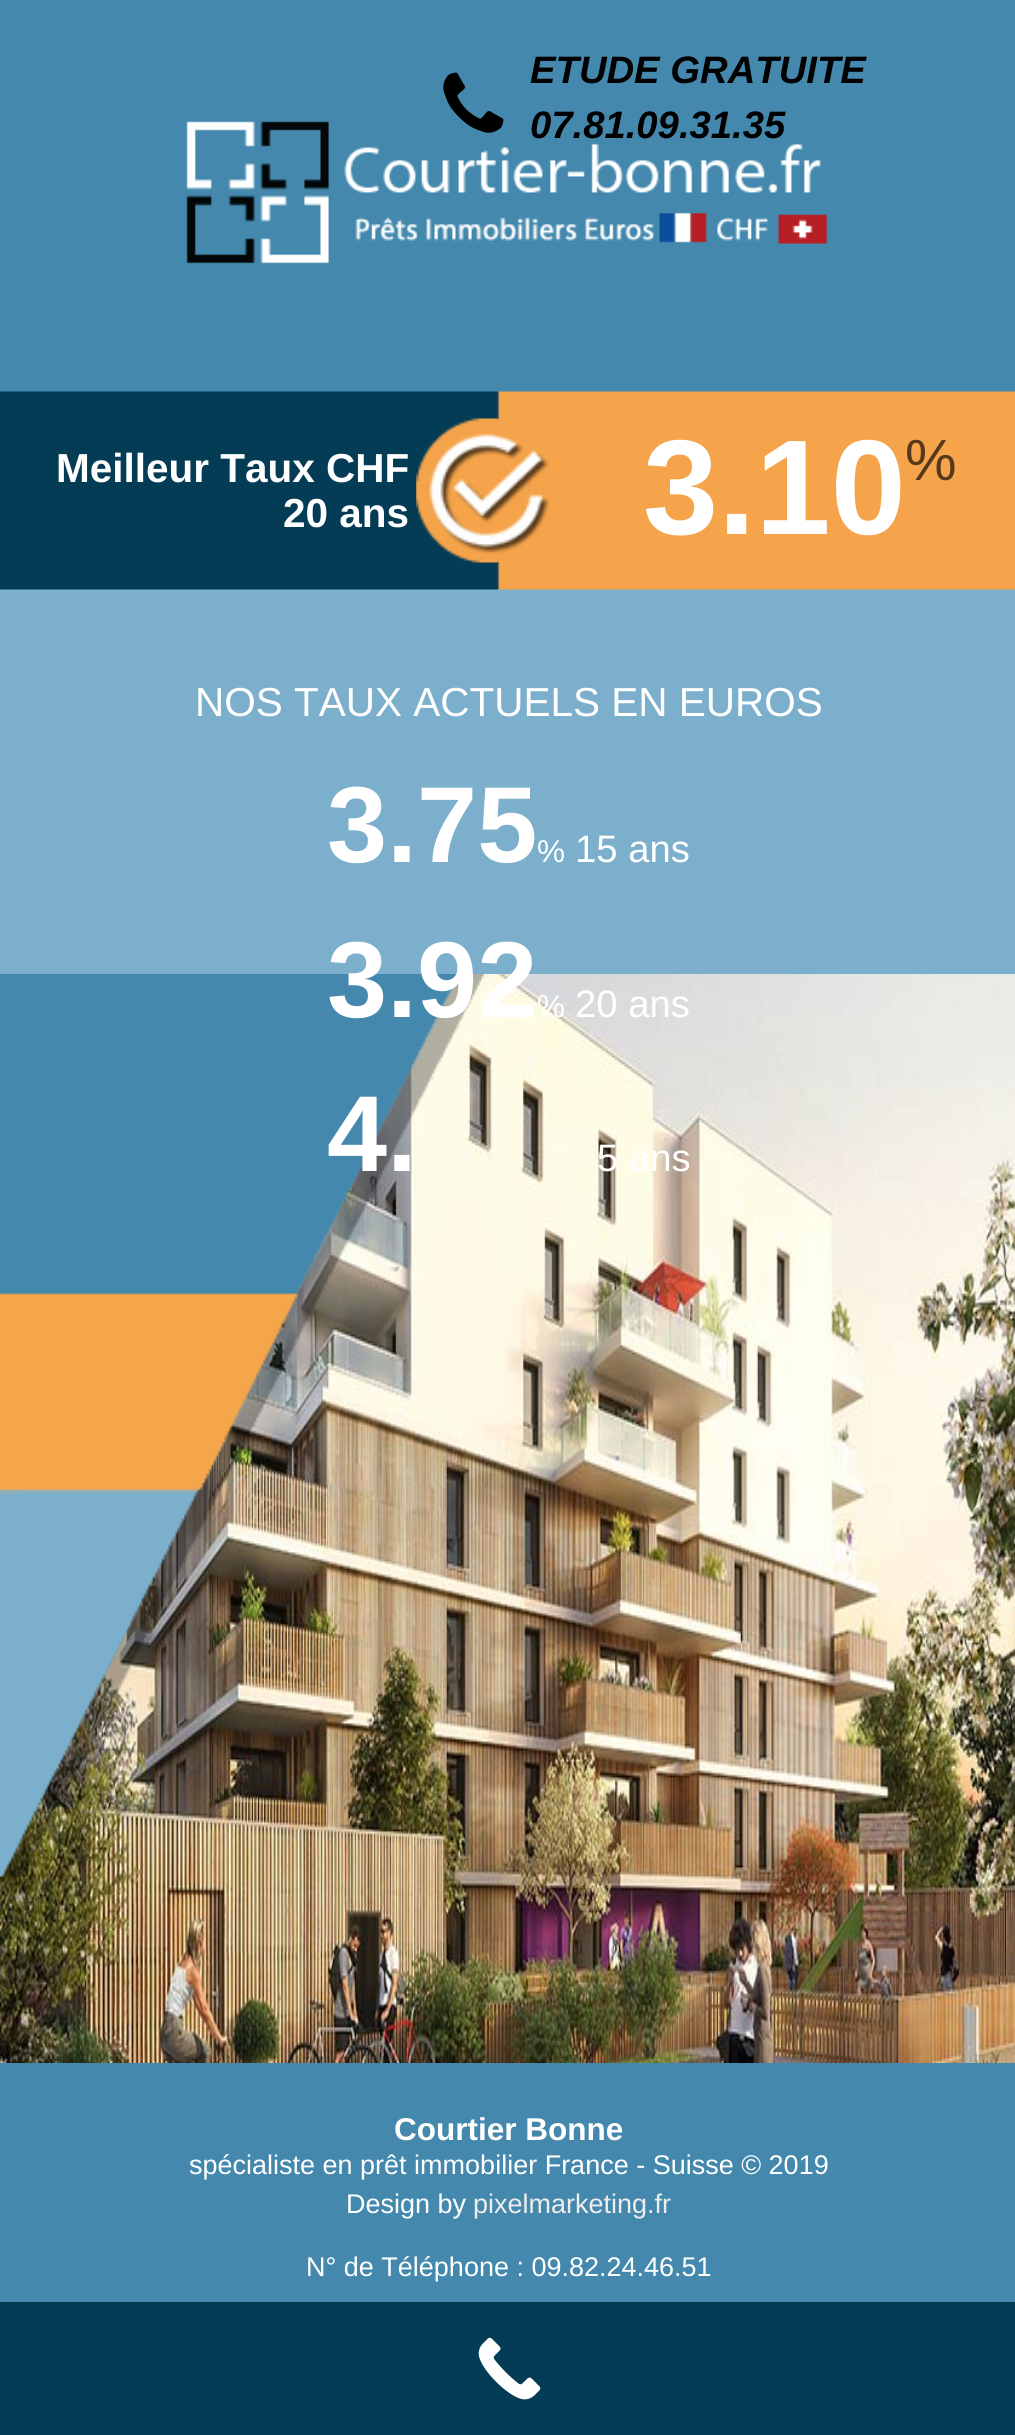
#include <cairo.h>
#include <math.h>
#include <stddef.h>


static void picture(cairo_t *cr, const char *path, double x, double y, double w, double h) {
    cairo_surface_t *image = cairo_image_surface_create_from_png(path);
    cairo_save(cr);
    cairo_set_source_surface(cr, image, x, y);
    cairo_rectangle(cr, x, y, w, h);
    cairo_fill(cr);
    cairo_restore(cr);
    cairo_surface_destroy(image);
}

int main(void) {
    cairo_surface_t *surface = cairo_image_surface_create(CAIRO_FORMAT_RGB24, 1015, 2435);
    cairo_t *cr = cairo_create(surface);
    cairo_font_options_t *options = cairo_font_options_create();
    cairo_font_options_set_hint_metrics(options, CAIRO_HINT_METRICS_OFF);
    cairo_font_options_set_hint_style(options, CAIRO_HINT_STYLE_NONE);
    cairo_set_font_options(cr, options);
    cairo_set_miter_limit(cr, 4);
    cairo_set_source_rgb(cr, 1, 1, 1);
    cairo_paint(cr);
    cairo_set_source_rgb(cr, 0.267, 0.537, 0.678);
    cairo_rectangle(cr, 0, 0, 1015, 392);
    cairo_fill(cr);
    picture(cr, "img2.png", 186, 121, 642, 143);
    picture(cr, "img1.png", 443, 72, 61, 61);
    cairo_select_font_face(cr, "Liberation Sans", CAIRO_FONT_SLANT_ITALIC, CAIRO_FONT_WEIGHT_BOLD);
    cairo_set_font_size(cr, 38.25);
    cairo_set_source_rgb(cr, 0, 0, 0);
    cairo_move_to(cr, 530, 83);
    cairo_show_text(cr, "ETUDE GRATUITE");
    cairo_move_to(cr, 530, 138);
    cairo_show_text(cr, "07.81.09.31.35");
    cairo_set_source_rgb(cr, 0.486, 0.686, 0.796);
    cairo_rectangle(cr, 0, 589, 1015, 385);
    cairo_fill(cr);
    picture(cr, "img3.png", 0, 391, 1015, 199);
    cairo_select_font_face(cr, "Liberation Sans", CAIRO_FONT_SLANT_NORMAL, CAIRO_FONT_WEIGHT_BOLD);
    cairo_set_font_size(cr, 40.5);
    cairo_set_source_rgb(cr, 1, 1, 1);
    cairo_move_to(cr, 56, 482);
    cairo_show_text(cr, "Meilleur Taux CHF");
    cairo_move_to(cr, 283, 527);
    cairo_show_text(cr, "20 ans");
    picture(cr, "img4.png", 416, 418, 134, 145);
    cairo_set_font_size(cr, 135);
    cairo_move_to(cr, 643, 534);
    cairo_show_text(cr, "3.10");
    cairo_select_font_face(cr, "Liberation Sans", CAIRO_FONT_SLANT_NORMAL, CAIRO_FONT_WEIGHT_NORMAL);
    cairo_set_font_size(cr, 58);
    cairo_set_source_rgb(cr, 0.337, 0.224, 0.102);
    cairo_move_to(cr, 905, 480);
    cairo_show_text(cr, "%");
    cairo_set_font_size(cr, 40.5);
    cairo_set_source_rgb(cr, 1, 1, 1);
    cairo_move_to(cr, 195, 716);
    cairo_show_text(cr, "NOS TAUX ACTUELS EN EUROS");
    cairo_select_font_face(cr, "Liberation Sans", CAIRO_FONT_SLANT_NORMAL, CAIRO_FONT_WEIGHT_BOLD);
    cairo_set_font_size(cr, 108);
    cairo_move_to(cr, 327, 862);
    cairo_show_text(cr, "3.75");
    cairo_select_font_face(cr, "Liberation Sans", CAIRO_FONT_SLANT_NORMAL, CAIRO_FONT_WEIGHT_NORMAL);
    cairo_set_font_size(cr, 31.5);
    cairo_move_to(cr, 537, 862);
    cairo_show_text(cr, "%");
    cairo_set_font_size(cr, 38.25);
    cairo_move_to(cr, 575, 862);
    cairo_show_text(cr, "15 ans");
    picture(cr, "img6.png", 0, 974, 1015, 1089);
    picture(cr, "img5.png", 0, 974, 485, 903);
    cairo_select_font_face(cr, "Liberation Sans", CAIRO_FONT_SLANT_NORMAL, CAIRO_FONT_WEIGHT_BOLD);
    cairo_set_font_size(cr, 108);
    cairo_move_to(cr, 327, 1017);
    cairo_show_text(cr, "3.92");
    cairo_select_font_face(cr, "Liberation Sans", CAIRO_FONT_SLANT_NORMAL, CAIRO_FONT_WEIGHT_NORMAL);
    cairo_set_font_size(cr, 31.5);
    cairo_move_to(cr, 537, 1017);
    cairo_show_text(cr, "%");
    cairo_set_font_size(cr, 38.25);
    cairo_move_to(cr, 575, 1017);
    cairo_show_text(cr, "20 ans");
    cairo_select_font_face(cr, "Liberation Sans", CAIRO_FONT_SLANT_NORMAL, CAIRO_FONT_WEIGHT_BOLD);
    cairo_set_font_size(cr, 108);
    cairo_move_to(cr, 327, 1171);
    cairo_show_text(cr, "4.");
    cairo_select_font_face(cr, "Liberation Sans", CAIRO_FONT_SLANT_NORMAL, CAIRO_FONT_WEIGHT_NORMAL);
    cairo_set_font_size(cr, 38.25);
    cairo_move_to(cr, 597, 1171);
    cairo_show_text(cr, "5 ans");
    cairo_set_source_rgb(cr, 0.267, 0.537, 0.678);
    cairo_rectangle(cr, 0, 2063, 1015, 239);
    cairo_fill(cr);
    cairo_select_font_face(cr, "Liberation Sans", CAIRO_FONT_SLANT_NORMAL, CAIRO_FONT_WEIGHT_BOLD);
    cairo_set_font_size(cr, 31.5);
    cairo_set_source_rgb(cr, 1, 1, 1);
    cairo_move_to(cr, 394, 2140);
    cairo_show_text(cr, "Courtier Bonne");
    cairo_select_font_face(cr, "Liberation Sans", CAIRO_FONT_SLANT_NORMAL, CAIRO_FONT_WEIGHT_NORMAL);
    cairo_set_font_size(cr, 27);
    cairo_move_to(cr, 189, 2174);
    cairo_show_text(cr, "spécialiste en prêt immobilier France - Suisse © 2019");
    cairo_move_to(cr, 346, 2213);
    cairo_show_text(cr, "Design by");
    cairo_set_source_rgb(cr, 0.933, 0.933, 0.933);
    cairo_move_to(cr, 473, 2213);
    cairo_show_text(cr, "pixelmarketing.fr");
    cairo_set_source_rgb(cr, 1, 1, 1);
    cairo_move_to(cr, 306, 2276);
    cairo_show_text(cr, "N° de Téléphone : 09.82.24.46.51");
    cairo_set_source_rgb(cr, 0.016, 0.235, 0.333);
    cairo_rectangle(cr, 0, 2302, 1015, 133);
    cairo_fill(cr);
    picture(cr, "img7.png", 478, 2337, 63, 63);
    cairo_surface_write_to_png(surface, "page.png");
    cairo_font_options_destroy(options);
    cairo_destroy(cr);
    cairo_surface_destroy(surface);
    return 0;
}
